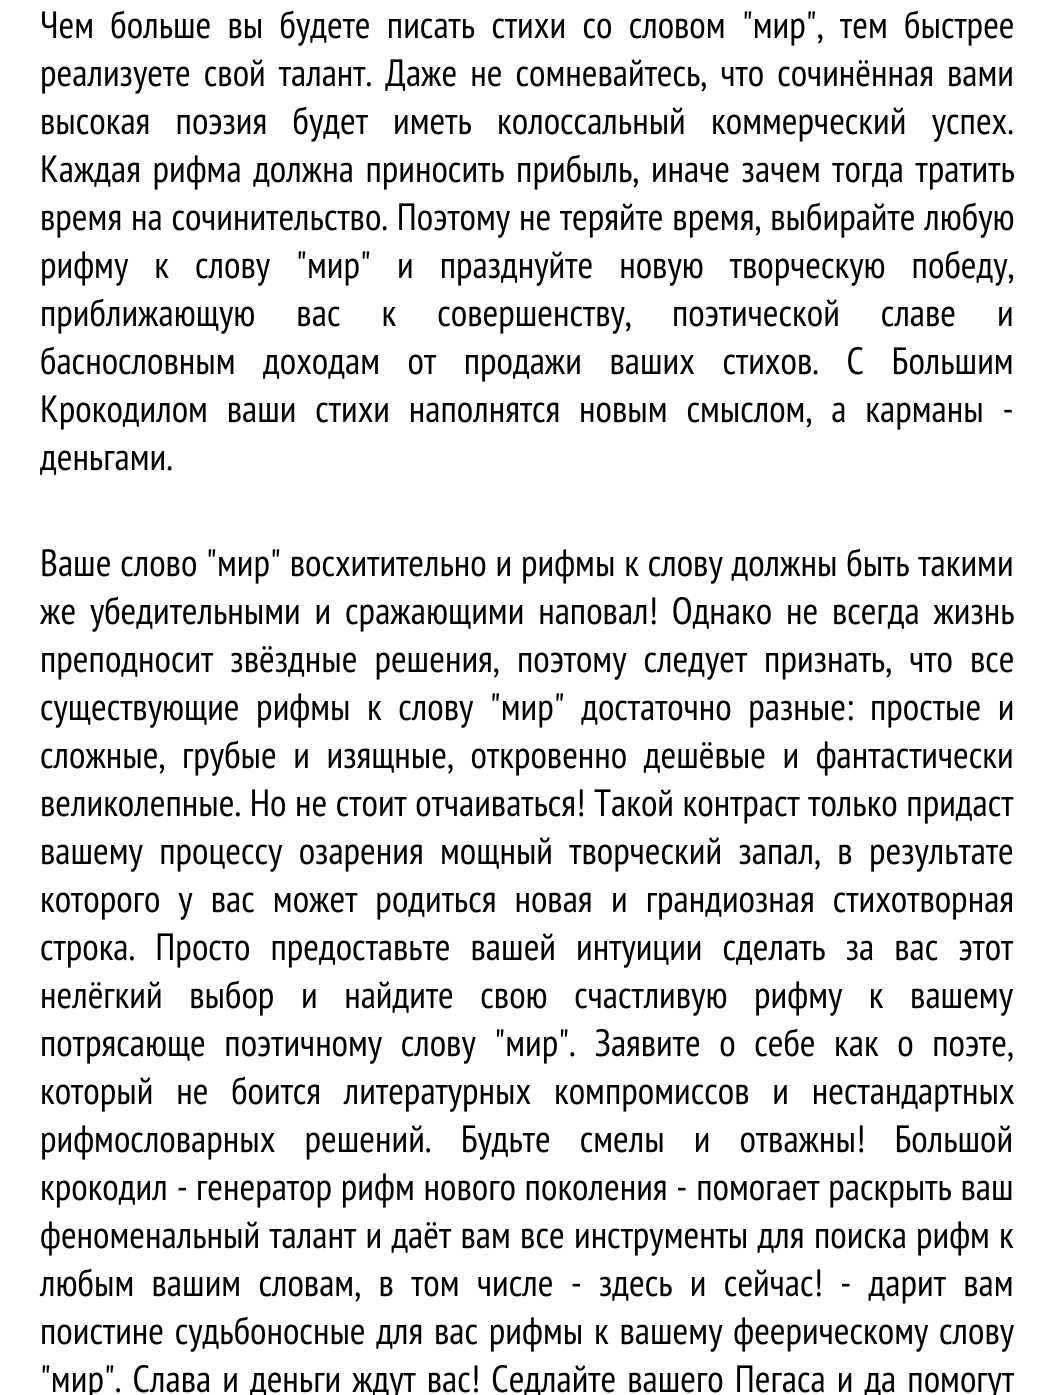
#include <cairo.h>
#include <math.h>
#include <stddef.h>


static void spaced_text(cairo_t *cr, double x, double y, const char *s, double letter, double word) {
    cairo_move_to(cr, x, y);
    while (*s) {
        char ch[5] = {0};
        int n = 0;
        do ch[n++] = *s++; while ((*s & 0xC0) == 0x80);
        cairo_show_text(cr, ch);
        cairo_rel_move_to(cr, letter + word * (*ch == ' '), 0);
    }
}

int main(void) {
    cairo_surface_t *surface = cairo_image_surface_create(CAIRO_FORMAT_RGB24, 1053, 1395);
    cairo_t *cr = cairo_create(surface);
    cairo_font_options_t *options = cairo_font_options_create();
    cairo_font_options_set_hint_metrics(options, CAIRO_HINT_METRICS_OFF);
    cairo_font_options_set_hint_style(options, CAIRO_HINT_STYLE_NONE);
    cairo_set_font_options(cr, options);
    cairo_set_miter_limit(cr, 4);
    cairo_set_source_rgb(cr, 1, 1, 1);
    cairo_paint(cr);
    cairo_select_font_face(cr, "PT Sans Narrow", CAIRO_FONT_SLANT_NORMAL, CAIRO_FONT_WEIGHT_NORMAL);
    cairo_set_font_size(cr, 38);
    cairo_set_source_rgb(cr, 0, 0, 0);
    spaced_text(cr, 40, 38, "Чем больше вы будете писать стихи со словом \"мир\", тем быстрее", 0, 8.25);
    spaced_text(cr, 40, 86, "реализуете свой талант. Даже не сомневайтесь, что сочинённая вами", 0, 5);
    spaced_text(cr, 40, 134, "высокая поэзия будет иметь колоссальный коммерческий успех.", 0, 17.25);
    spaced_text(cr, 40, 182, "Каждая рифма должна приносить прибыль, иначе зачем тогда тратить", 0, 3.5);
    spaced_text(cr, 40, 230, "время на сочинительство. Поэтому не теряйте время, выбирайте любую", 0, 0.75);
    spaced_text(cr, 40, 278, "рифму к слову \"мир\" и празднуйте новую творческую победу,", 0, 18);
    spaced_text(cr, 40, 326, "приближающую вас к совершенству,", 0, 33);
    spaced_text(cr, 672, 326, "поэтической славе и", 0, 33);
    spaced_text(cr, 40, 374, "баснословным доходам от продажи ваших стихов. С Большим", 0, 19.5);
    spaced_text(cr, 40, 422, "Крокодилом ваши стихи наполнятся новым смыслом, а карманы -", 0, 10.75);
    cairo_move_to(cr, 40, 470);
    cairo_show_text(cr, "деньгами.");
    spaced_text(cr, 40, 576, "Ваше слово \"мир\" восхитительно и рифмы к слову должны быть такими", 0, 0.75);
    spaced_text(cr, 40, 624, "же убедительными и сражающими наповал! Однако не всегда жизнь", 0, 5.75);
    spaced_text(cr, 40, 672, "преподносит звёздные решения, поэтому следует признать, что все", 0, 9);
    spaced_text(cr, 40, 720, "существующие рифмы к слову \"мир\" достаточно разные:", 0, 8.5);
    spaced_text(cr, 870, 720, "простые и", 0, 8.5);
    spaced_text(cr, 40, 768, "сложные, грубые и изящные, откровенно дешёвые и фантастически", 0, 8.5);
    spaced_text(cr, 40, 816, "великолепные. Но не стоит отчаиваться! Такой контраст только придаст", 0, 0.5);
    spaced_text(cr, 40, 864, "вашему процессу озарения мощный творческий запал, в результате", 0, 8.25);
    spaced_text(cr, 40, 912, "которого у вас может родиться новая", 0, 10);
    spaced_text(cr, 611, 912, "и грандиозная стихотворная", 0, 10);
    spaced_text(cr, 40, 960, "строка. Просто предоставьте вашей интуиции сделать за вас этот", 0, 12);
    spaced_text(cr, 40, 1008, "нелёгкий выбор и найдите свою счастливую рифму к вашему", 0, 18.5);
    spaced_text(cr, 40, 1056, "потрясающе поэтичному слову \"мир\". Заявите о себе как о поэте,", 0, 10.5);
    spaced_text(cr, 40, 1104, "который не боится литературных компромиссов и нестандартных", 0, 14.75);
    spaced_text(cr, 40, 1152, "рифмословарных решений. Будьте смелы и отважны! Большой", 0, 21);
    spaced_text(cr, 40, 1200, "крокодил -", 0, 1);
    spaced_text(cr, 196, 1200, "генератор рифм нового поколения - помогает раскрыть ваш", 0, 0.75);
    spaced_text(cr, 40, 1248, "феноменальный талант и даёт вам все инструменты для", 0, 1.25);
    spaced_text(cr, 814, 1248, "поиска рифм", 0, 1);
    cairo_move_to(cr, 999, 1248);
    cairo_show_text(cr, "к");
    spaced_text(cr, 40, 1296, "любым вашим словам, в том числе - здесь и сейчас! - дарит вам", 0, 9.25);
    spaced_text(cr, 40, 1344, "поистине судьбоносные для вас рифмы к вашему феерическому слову", 0, 2.75);
    spaced_text(cr, 40, 1392, "\"мир\". Слава и деньги ждут вас! Седлайте вашего Пегаса и да помогут", 0, 3);
    cairo_surface_write_to_png(surface, "page.png");
    cairo_font_options_destroy(options);
    cairo_destroy(cr);
    cairo_surface_destroy(surface);
    return 0;
}
